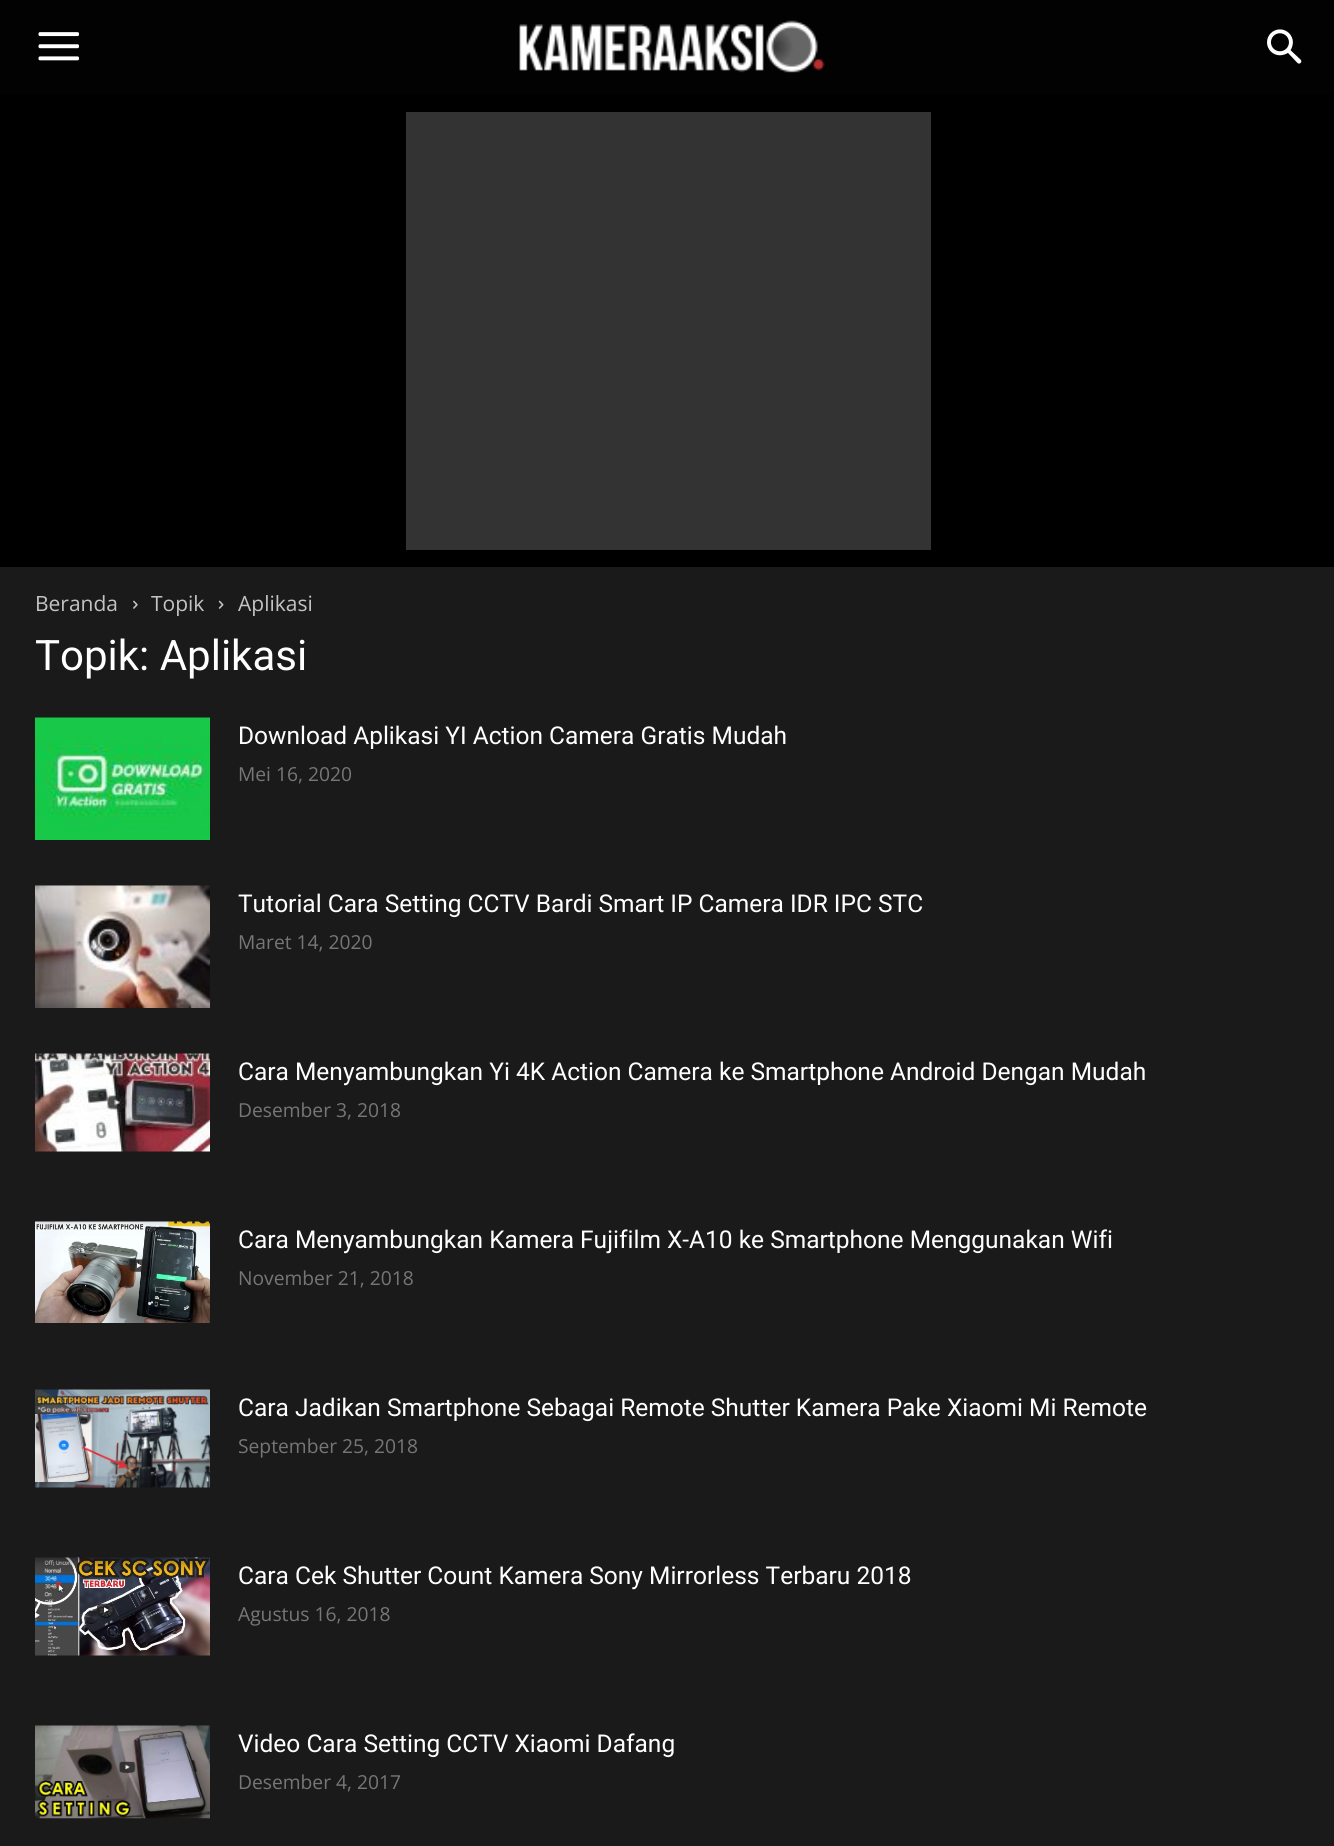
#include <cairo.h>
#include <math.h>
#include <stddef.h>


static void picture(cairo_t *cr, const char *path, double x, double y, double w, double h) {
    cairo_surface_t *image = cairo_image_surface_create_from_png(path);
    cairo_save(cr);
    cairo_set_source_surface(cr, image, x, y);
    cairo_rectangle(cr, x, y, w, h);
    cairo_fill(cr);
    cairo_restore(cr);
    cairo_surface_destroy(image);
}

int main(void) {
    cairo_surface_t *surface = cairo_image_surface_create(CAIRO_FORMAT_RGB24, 1334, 1846);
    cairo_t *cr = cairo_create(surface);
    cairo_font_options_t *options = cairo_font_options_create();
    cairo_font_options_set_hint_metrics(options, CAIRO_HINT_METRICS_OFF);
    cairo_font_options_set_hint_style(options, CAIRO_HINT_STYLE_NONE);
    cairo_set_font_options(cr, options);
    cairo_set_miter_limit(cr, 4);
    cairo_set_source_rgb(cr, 0.102, 0.102, 0.102);
    cairo_paint(cr);
    cairo_set_source_rgb(cr, 0.008, 0.008, 0.008);
    cairo_rectangle(cr, 0, 0, 1334, 95);
    cairo_fill(cr);
    picture(cr, "img1.png", 38, 32, 41, 29);
    picture(cr, "img2.png", 519, 20, 306, 53);
    picture(cr, "img3.png", 1267, 29, 35, 35);
    cairo_set_source_rgb(cr, 0, 0, 0);
    cairo_rectangle(cr, 0, 95, 1334, 472);
    cairo_fill(cr);
    cairo_set_source_rgb(cr, 0.2, 0.2, 0.2);
    cairo_rectangle(cr, 406, 112, 525, 438);
    cairo_fill(cr);
    cairo_select_font_face(cr, "Open Sans", CAIRO_FONT_SLANT_NORMAL, CAIRO_FONT_WEIGHT_NORMAL);
    cairo_set_font_size(cr, 21);
    cairo_set_source_rgb(cr, 0.765, 0.765, 0.765);
    cairo_move_to(cr, 35, 611);
    cairo_show_text(cr, "Beranda");
    picture(cr, "img4.png", 133, 600, 5, 9);
    cairo_move_to(cr, 151, 611);
    cairo_show_text(cr, "Topik");
    picture(cr, "img5.png", 218, 600, 6, 9);
    cairo_move_to(cr, 238, 611);
    cairo_show_text(cr, "Aplikasi");
    cairo_select_font_face(cr, "Roboto", CAIRO_FONT_SLANT_NORMAL, CAIRO_FONT_WEIGHT_NORMAL);
    cairo_set_font_size(cr, 42);
    cairo_set_source_rgb(cr, 1, 1, 1);
    cairo_move_to(cr, 35, 670);
    cairo_show_text(cr, "Topik: Aplikasi");
    picture(cr, "img6.png", 35, 717, 175, 123);
    cairo_set_font_size(cr, 24.5);
    cairo_move_to(cr, 238, 744);
    cairo_show_text(cr, "Download Aplikasi YI Action Camera Gratis Mudah");
    cairo_select_font_face(cr, "Open Sans", CAIRO_FONT_SLANT_NORMAL, CAIRO_FONT_WEIGHT_NORMAL);
    cairo_set_font_size(cr, 19.25);
    cairo_set_source_rgb(cr, 0.463, 0.463, 0.463);
    cairo_move_to(cr, 238, 781);
    cairo_show_text(cr, "Mei 16, 2020");
    picture(cr, "img7.png", 35, 885, 175, 123);
    cairo_select_font_face(cr, "Roboto", CAIRO_FONT_SLANT_NORMAL, CAIRO_FONT_WEIGHT_NORMAL);
    cairo_set_font_size(cr, 24.5);
    cairo_set_source_rgb(cr, 1, 1, 1);
    cairo_move_to(cr, 238, 912);
    cairo_show_text(cr, "Tutorial Cara Setting CCTV Bardi Smart IP Camera IDR IPC STC");
    cairo_select_font_face(cr, "Open Sans", CAIRO_FONT_SLANT_NORMAL, CAIRO_FONT_WEIGHT_NORMAL);
    cairo_set_font_size(cr, 19.25);
    cairo_set_source_rgb(cr, 0.463, 0.463, 0.463);
    cairo_move_to(cr, 238, 949);
    cairo_show_text(cr, "Maret 14, 2020");
    picture(cr, "img8.png", 35, 1053, 175, 99);
    cairo_select_font_face(cr, "Roboto", CAIRO_FONT_SLANT_NORMAL, CAIRO_FONT_WEIGHT_NORMAL);
    cairo_set_font_size(cr, 24.5);
    cairo_set_source_rgb(cr, 1, 1, 1);
    cairo_move_to(cr, 238, 1080);
    cairo_show_text(cr, "Cara Menyambungkan Yi 4K Action Camera ke Smartphone Android Dengan Mudah");
    cairo_select_font_face(cr, "Open Sans", CAIRO_FONT_SLANT_NORMAL, CAIRO_FONT_WEIGHT_NORMAL);
    cairo_set_font_size(cr, 19.25);
    cairo_set_source_rgb(cr, 0.463, 0.463, 0.463);
    cairo_move_to(cr, 238, 1117);
    cairo_show_text(cr, "Desember 3, 2018");
    picture(cr, "img9.png", 35, 1221, 175, 102);
    cairo_select_font_face(cr, "Roboto", CAIRO_FONT_SLANT_NORMAL, CAIRO_FONT_WEIGHT_NORMAL);
    cairo_set_font_size(cr, 24.5);
    cairo_set_source_rgb(cr, 1, 1, 1);
    cairo_move_to(cr, 238, 1248);
    cairo_show_text(cr, "Cara Menyambungkan Kamera Fujifilm X-A10 ke Smartphone Menggunakan Wifi");
    cairo_select_font_face(cr, "Open Sans", CAIRO_FONT_SLANT_NORMAL, CAIRO_FONT_WEIGHT_NORMAL);
    cairo_set_font_size(cr, 19.25);
    cairo_set_source_rgb(cr, 0.463, 0.463, 0.463);
    cairo_move_to(cr, 238, 1285);
    cairo_show_text(cr, "November 21, 2018");
    picture(cr, "img10.png", 35, 1389, 175, 99);
    cairo_select_font_face(cr, "Roboto", CAIRO_FONT_SLANT_NORMAL, CAIRO_FONT_WEIGHT_NORMAL);
    cairo_set_font_size(cr, 24.5);
    cairo_set_source_rgb(cr, 1, 1, 1);
    cairo_move_to(cr, 238, 1416);
    cairo_show_text(cr, "Cara Jadikan Smartphone Sebagai Remote Shutter Kamera Pake Xiaomi Mi Remote");
    cairo_select_font_face(cr, "Open Sans", CAIRO_FONT_SLANT_NORMAL, CAIRO_FONT_WEIGHT_NORMAL);
    cairo_set_font_size(cr, 19.25);
    cairo_set_source_rgb(cr, 0.463, 0.463, 0.463);
    cairo_move_to(cr, 238, 1453);
    cairo_show_text(cr, "September 25, 2018");
    picture(cr, "img11.png", 35, 1557, 175, 99);
    cairo_select_font_face(cr, "Roboto", CAIRO_FONT_SLANT_NORMAL, CAIRO_FONT_WEIGHT_NORMAL);
    cairo_set_font_size(cr, 24.5);
    cairo_set_source_rgb(cr, 1, 1, 1);
    cairo_move_to(cr, 238, 1584);
    cairo_show_text(cr, "Cara Cek Shutter Count Kamera Sony Mirrorless Terbaru 2018");
    cairo_select_font_face(cr, "Open Sans", CAIRO_FONT_SLANT_NORMAL, CAIRO_FONT_WEIGHT_NORMAL);
    cairo_set_font_size(cr, 19.25);
    cairo_set_source_rgb(cr, 0.463, 0.463, 0.463);
    cairo_move_to(cr, 238, 1621);
    cairo_show_text(cr, "Agustus 16, 2018");
    picture(cr, "img12.png", 35, 1725, 175, 94);
    cairo_select_font_face(cr, "Roboto", CAIRO_FONT_SLANT_NORMAL, CAIRO_FONT_WEIGHT_NORMAL);
    cairo_set_font_size(cr, 24.5);
    cairo_set_source_rgb(cr, 1, 1, 1);
    cairo_move_to(cr, 238, 1752);
    cairo_show_text(cr, "Video Cara Setting CCTV Xiaomi Dafang");
    cairo_select_font_face(cr, "Open Sans", CAIRO_FONT_SLANT_NORMAL, CAIRO_FONT_WEIGHT_NORMAL);
    cairo_set_font_size(cr, 19.25);
    cairo_set_source_rgb(cr, 0.463, 0.463, 0.463);
    cairo_move_to(cr, 238, 1789);
    cairo_show_text(cr, "Desember 4, 2017");
    cairo_surface_write_to_png(surface, "page.png");
    cairo_font_options_destroy(options);
    cairo_destroy(cr);
    cairo_surface_destroy(surface);
    return 0;
}
